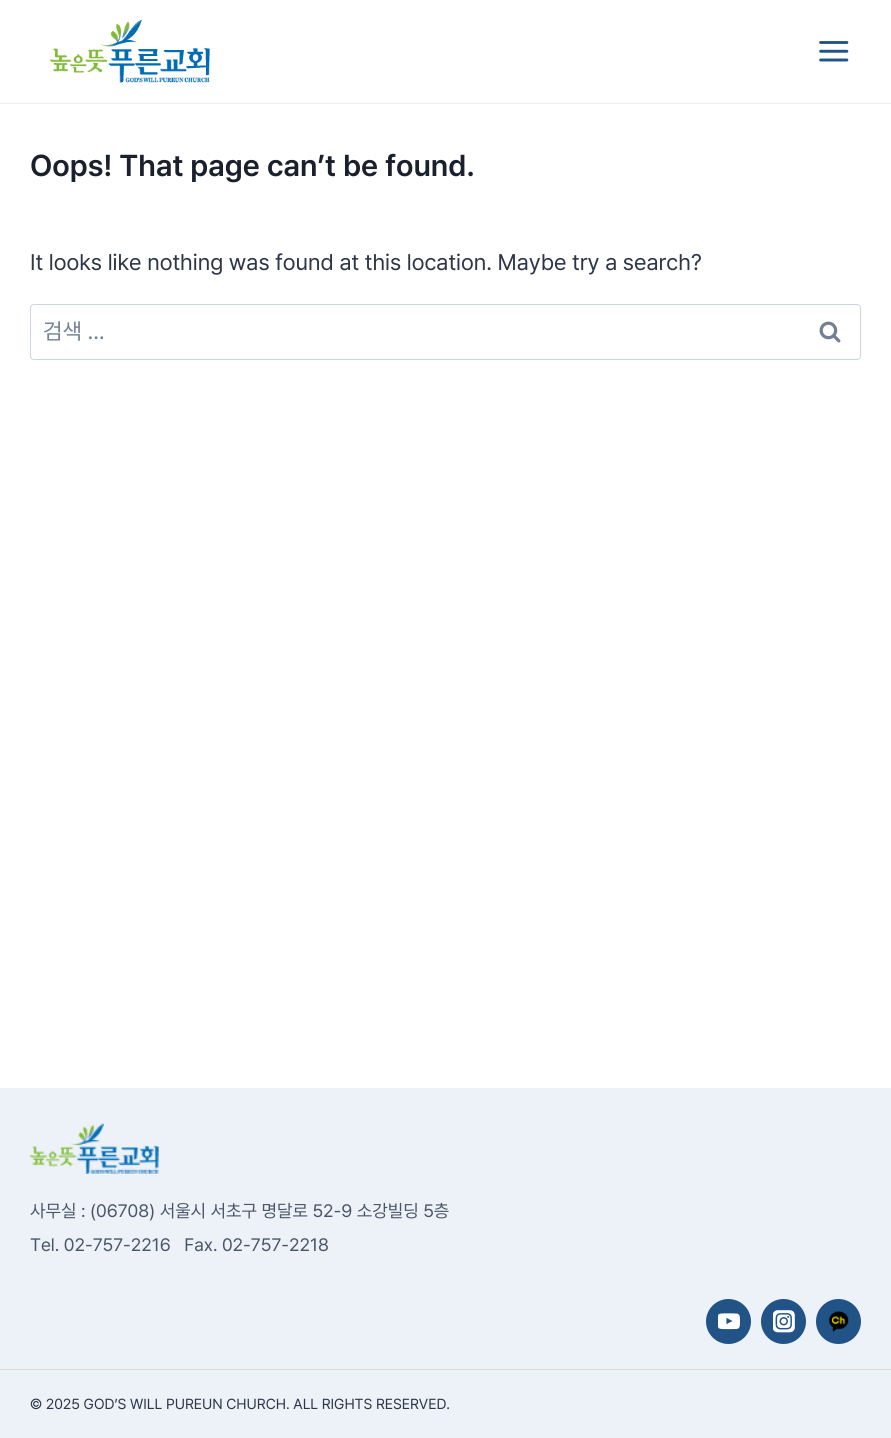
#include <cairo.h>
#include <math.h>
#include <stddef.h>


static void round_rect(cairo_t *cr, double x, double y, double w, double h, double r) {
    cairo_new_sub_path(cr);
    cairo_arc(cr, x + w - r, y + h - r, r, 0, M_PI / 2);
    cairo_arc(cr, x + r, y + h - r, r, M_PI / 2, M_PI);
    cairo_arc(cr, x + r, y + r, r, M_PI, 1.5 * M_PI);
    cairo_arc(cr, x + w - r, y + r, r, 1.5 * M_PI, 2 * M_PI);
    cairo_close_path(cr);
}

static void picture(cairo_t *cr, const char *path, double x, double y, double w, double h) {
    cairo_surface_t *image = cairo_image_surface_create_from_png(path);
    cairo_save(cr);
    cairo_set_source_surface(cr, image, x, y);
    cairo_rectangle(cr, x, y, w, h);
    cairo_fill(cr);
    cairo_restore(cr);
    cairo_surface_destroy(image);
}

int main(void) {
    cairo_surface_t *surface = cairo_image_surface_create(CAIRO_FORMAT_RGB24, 891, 1438);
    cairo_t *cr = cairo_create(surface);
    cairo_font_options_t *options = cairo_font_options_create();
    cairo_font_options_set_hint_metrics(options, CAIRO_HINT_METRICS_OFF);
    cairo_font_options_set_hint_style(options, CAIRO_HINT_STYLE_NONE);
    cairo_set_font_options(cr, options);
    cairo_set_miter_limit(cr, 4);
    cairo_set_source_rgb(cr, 1, 1, 1);
    cairo_paint(cr);
    cairo_set_source_rgb(cr, 0.933, 0.933, 0.933);
    cairo_rectangle(cr, 0, 103, 891, 1);
    cairo_fill(cr);
    picture(cr, "img1.png", 50, 20, 160, 63);
    picture(cr, "img2.png", 819, 41, 30, 21);
    cairo_select_font_face(cr, "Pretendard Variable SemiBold", CAIRO_FONT_SLANT_NORMAL, CAIRO_FONT_WEIGHT_NORMAL);
    cairo_set_font_size(cr, 30);
    cairo_set_source_rgb(cr, 0.102, 0.125, 0.173);
    cairo_move_to(cr, 30, 176);
    cairo_show_text(cr, "Oops! That page can’t be found.");
    cairo_select_font_face(cr, "Pretendard Variable", CAIRO_FONT_SLANT_NORMAL, CAIRO_FONT_WEIGHT_NORMAL);
    cairo_set_font_size(cr, 22.5);
    cairo_set_source_rgb(cr, 0.176, 0.216, 0.282);
    cairo_move_to(cr, 30, 270);
    cairo_show_text(cr, "It looks like nothing was found at this location. Maybe try a search?");
    round_rect(cr, 30.5, 304.5, 830, 55, 3.5);
    cairo_set_source_rgb(cr, 0.796, 0.835, 0.878);
    cairo_set_line_width(cr, 1);
    cairo_stroke(cr);
    cairo_set_source_rgb(cr, 0.443, 0.502, 0.588);
    cairo_move_to(cr, 43, 339);
    cairo_show_text(cr, "검색 …");
    picture(cr, "img3.png", 819, 321, 22, 22);
    cairo_set_source_rgb(cr, 0.929, 0.949, 0.969);
    cairo_rectangle(cr, 0, 1088, 891, 350);
    cairo_fill(cr);
    picture(cr, "img4.png", 30, 1123, 129, 51);
    cairo_set_font_size(cr, 17.9);
    cairo_set_source_rgb(cr, 0.29, 0.333, 0.408);
    cairo_move_to(cr, 30, 1217);
    cairo_show_text(cr, "사무실 : (06708) 서울시 서초구 명달로 52-9 소강빌딩 5층");
    cairo_move_to(cr, 30, 1251);
    cairo_show_text(cr, "Tel. 02-757-2216   Fax. 02-757-2218");
    cairo_set_source_rgb(cr, 0.129, 0.325, 0.529);
    cairo_new_path(cr);
    cairo_arc(cr, 728.5, 1321.5, 22.5, 0, 2 * M_PI);
    cairo_fill(cr);
    picture(cr, "img5.png", 718, 1313, 22, 17);
    cairo_arc(cr, 783.5, 1321.5, 22.5, 0, 2 * M_PI);
    cairo_fill(cr);
    picture(cr, "img6.png", 773, 1310, 22, 23);
    cairo_arc(cr, 838.5, 1321.5, 22.5, 0, 2 * M_PI);
    cairo_fill(cr);
    picture(cr, "img7.png", 828, 1311, 21, 21);
    cairo_set_source_rgb(cr, 0.867, 0.851, 0.827);
    cairo_rectangle(cr, 0, 1369, 891, 1);
    cairo_fill(cr);
    cairo_set_font_size(cr, 14.5);
    cairo_set_source_rgb(cr, 0.176, 0.216, 0.282);
    cairo_move_to(cr, 30, 1409);
    cairo_show_text(cr, "© 2025 GOD’S WILL PUREUN CHURCH. ALL RIGHTS RESERVED.");
    cairo_surface_write_to_png(surface, "page.png");
    cairo_font_options_destroy(options);
    cairo_destroy(cr);
    cairo_surface_destroy(surface);
    return 0;
}
